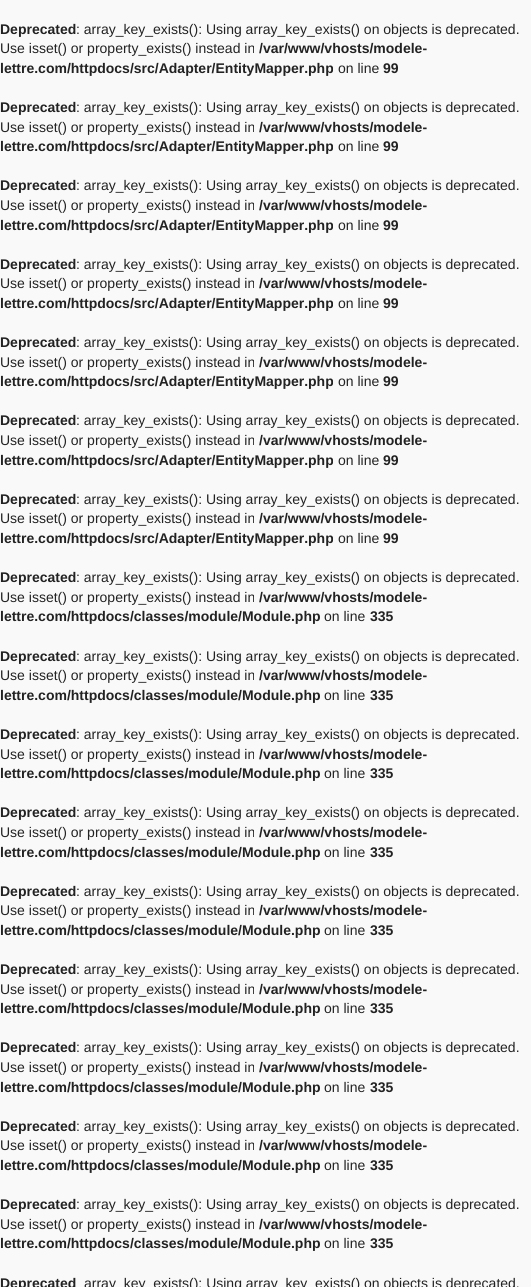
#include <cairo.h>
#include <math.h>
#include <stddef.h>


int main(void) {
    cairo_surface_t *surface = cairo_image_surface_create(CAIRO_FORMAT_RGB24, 531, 1287);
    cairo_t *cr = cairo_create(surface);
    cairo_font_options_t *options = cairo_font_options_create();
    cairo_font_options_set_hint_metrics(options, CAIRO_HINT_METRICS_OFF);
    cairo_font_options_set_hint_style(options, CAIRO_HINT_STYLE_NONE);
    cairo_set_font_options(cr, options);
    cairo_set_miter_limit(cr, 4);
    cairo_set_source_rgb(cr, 0.976, 0.976, 0.976);
    cairo_paint(cr);
    cairo_select_font_face(cr, "Liberation Sans", CAIRO_FONT_SLANT_NORMAL, CAIRO_FONT_WEIGHT_BOLD);
    cairo_set_font_size(cr, 14);
    cairo_set_source_rgb(cr, 0.133, 0.133, 0.133);
    cairo_move_to(cr, 0, 34);
    cairo_show_text(cr, "Deprecated");
    cairo_select_font_face(cr, "Liberation Sans", CAIRO_FONT_SLANT_NORMAL, CAIRO_FONT_WEIGHT_NORMAL);
    cairo_move_to(cr, 76, 34);
    cairo_show_text(cr, ": array_key_exists(): Using array_key_exists() on objects is deprecated.");
    cairo_move_to(cr, 0, 53);
    cairo_show_text(cr, "Use isset() or property_exists() instead in");
    cairo_select_font_face(cr, "Liberation Sans", CAIRO_FONT_SLANT_NORMAL, CAIRO_FONT_WEIGHT_BOLD);
    cairo_move_to(cr, 259, 53);
    cairo_show_text(cr, "/var/www/vhosts/modele-");
    cairo_move_to(cr, 0, 73);
    cairo_show_text(cr, "lettre.com/httpdocs/src/Adapter/EntityMapper.php");
    cairo_select_font_face(cr, "Liberation Sans", CAIRO_FONT_SLANT_NORMAL, CAIRO_FONT_WEIGHT_NORMAL);
    cairo_move_to(cr, 338, 73);
    cairo_show_text(cr, "on line");
    cairo_select_font_face(cr, "Liberation Sans", CAIRO_FONT_SLANT_NORMAL, CAIRO_FONT_WEIGHT_BOLD);
    cairo_move_to(cr, 383, 73);
    cairo_show_text(cr, "99");
    cairo_move_to(cr, 0, 112);
    cairo_show_text(cr, "Deprecated");
    cairo_select_font_face(cr, "Liberation Sans", CAIRO_FONT_SLANT_NORMAL, CAIRO_FONT_WEIGHT_NORMAL);
    cairo_move_to(cr, 76, 112);
    cairo_show_text(cr, ": array_key_exists(): Using array_key_exists() on objects is deprecated.");
    cairo_move_to(cr, 0, 132);
    cairo_show_text(cr, "Use isset() or property_exists() instead in");
    cairo_select_font_face(cr, "Liberation Sans", CAIRO_FONT_SLANT_NORMAL, CAIRO_FONT_WEIGHT_BOLD);
    cairo_move_to(cr, 259, 132);
    cairo_show_text(cr, "/var/www/vhosts/modele-");
    cairo_move_to(cr, 0, 151);
    cairo_show_text(cr, "lettre.com/httpdocs/src/Adapter/EntityMapper.php");
    cairo_select_font_face(cr, "Liberation Sans", CAIRO_FONT_SLANT_NORMAL, CAIRO_FONT_WEIGHT_NORMAL);
    cairo_move_to(cr, 338, 151);
    cairo_show_text(cr, "on line");
    cairo_select_font_face(cr, "Liberation Sans", CAIRO_FONT_SLANT_NORMAL, CAIRO_FONT_WEIGHT_BOLD);
    cairo_move_to(cr, 383, 151);
    cairo_show_text(cr, "99");
    cairo_move_to(cr, 0, 190);
    cairo_show_text(cr, "Deprecated");
    cairo_select_font_face(cr, "Liberation Sans", CAIRO_FONT_SLANT_NORMAL, CAIRO_FONT_WEIGHT_NORMAL);
    cairo_move_to(cr, 76, 190);
    cairo_show_text(cr, ": array_key_exists(): Using array_key_exists() on objects is deprecated.");
    cairo_move_to(cr, 0, 210);
    cairo_show_text(cr, "Use isset() or property_exists() instead in");
    cairo_select_font_face(cr, "Liberation Sans", CAIRO_FONT_SLANT_NORMAL, CAIRO_FONT_WEIGHT_BOLD);
    cairo_move_to(cr, 259, 210);
    cairo_show_text(cr, "/var/www/vhosts/modele-");
    cairo_move_to(cr, 0, 230);
    cairo_show_text(cr, "lettre.com/httpdocs/src/Adapter/EntityMapper.php");
    cairo_select_font_face(cr, "Liberation Sans", CAIRO_FONT_SLANT_NORMAL, CAIRO_FONT_WEIGHT_NORMAL);
    cairo_move_to(cr, 338, 230);
    cairo_show_text(cr, "on line");
    cairo_select_font_face(cr, "Liberation Sans", CAIRO_FONT_SLANT_NORMAL, CAIRO_FONT_WEIGHT_BOLD);
    cairo_move_to(cr, 383, 230);
    cairo_show_text(cr, "99");
    cairo_move_to(cr, 0, 269);
    cairo_show_text(cr, "Deprecated");
    cairo_select_font_face(cr, "Liberation Sans", CAIRO_FONT_SLANT_NORMAL, CAIRO_FONT_WEIGHT_NORMAL);
    cairo_move_to(cr, 76, 269);
    cairo_show_text(cr, ": array_key_exists(): Using array_key_exists() on objects is deprecated.");
    cairo_move_to(cr, 0, 288);
    cairo_show_text(cr, "Use isset() or property_exists() instead in");
    cairo_select_font_face(cr, "Liberation Sans", CAIRO_FONT_SLANT_NORMAL, CAIRO_FONT_WEIGHT_BOLD);
    cairo_move_to(cr, 259, 288);
    cairo_show_text(cr, "/var/www/vhosts/modele-");
    cairo_move_to(cr, 0, 308);
    cairo_show_text(cr, "lettre.com/httpdocs/src/Adapter/EntityMapper.php");
    cairo_select_font_face(cr, "Liberation Sans", CAIRO_FONT_SLANT_NORMAL, CAIRO_FONT_WEIGHT_NORMAL);
    cairo_move_to(cr, 338, 308);
    cairo_show_text(cr, "on line");
    cairo_select_font_face(cr, "Liberation Sans", CAIRO_FONT_SLANT_NORMAL, CAIRO_FONT_WEIGHT_BOLD);
    cairo_move_to(cr, 383, 308);
    cairo_show_text(cr, "99");
    cairo_move_to(cr, 0, 347);
    cairo_show_text(cr, "Deprecated");
    cairo_select_font_face(cr, "Liberation Sans", CAIRO_FONT_SLANT_NORMAL, CAIRO_FONT_WEIGHT_NORMAL);
    cairo_move_to(cr, 76, 347);
    cairo_show_text(cr, ": array_key_exists(): Using array_key_exists() on objects is deprecated.");
    cairo_move_to(cr, 0, 367);
    cairo_show_text(cr, "Use isset() or property_exists() instead in");
    cairo_select_font_face(cr, "Liberation Sans", CAIRO_FONT_SLANT_NORMAL, CAIRO_FONT_WEIGHT_BOLD);
    cairo_move_to(cr, 259, 367);
    cairo_show_text(cr, "/var/www/vhosts/modele-");
    cairo_move_to(cr, 0, 386);
    cairo_show_text(cr, "lettre.com/httpdocs/src/Adapter/EntityMapper.php");
    cairo_select_font_face(cr, "Liberation Sans", CAIRO_FONT_SLANT_NORMAL, CAIRO_FONT_WEIGHT_NORMAL);
    cairo_move_to(cr, 338, 386);
    cairo_show_text(cr, "on line");
    cairo_select_font_face(cr, "Liberation Sans", CAIRO_FONT_SLANT_NORMAL, CAIRO_FONT_WEIGHT_BOLD);
    cairo_move_to(cr, 383, 386);
    cairo_show_text(cr, "99");
    cairo_move_to(cr, 0, 425);
    cairo_show_text(cr, "Deprecated");
    cairo_select_font_face(cr, "Liberation Sans", CAIRO_FONT_SLANT_NORMAL, CAIRO_FONT_WEIGHT_NORMAL);
    cairo_move_to(cr, 76, 425);
    cairo_show_text(cr, ": array_key_exists(): Using array_key_exists() on objects is deprecated.");
    cairo_move_to(cr, 0, 445);
    cairo_show_text(cr, "Use isset() or property_exists() instead in");
    cairo_select_font_face(cr, "Liberation Sans", CAIRO_FONT_SLANT_NORMAL, CAIRO_FONT_WEIGHT_BOLD);
    cairo_move_to(cr, 259, 445);
    cairo_show_text(cr, "/var/www/vhosts/modele-");
    cairo_move_to(cr, 0, 465);
    cairo_show_text(cr, "lettre.com/httpdocs/src/Adapter/EntityMapper.php");
    cairo_select_font_face(cr, "Liberation Sans", CAIRO_FONT_SLANT_NORMAL, CAIRO_FONT_WEIGHT_NORMAL);
    cairo_move_to(cr, 338, 465);
    cairo_show_text(cr, "on line");
    cairo_select_font_face(cr, "Liberation Sans", CAIRO_FONT_SLANT_NORMAL, CAIRO_FONT_WEIGHT_BOLD);
    cairo_move_to(cr, 383, 465);
    cairo_show_text(cr, "99");
    cairo_move_to(cr, 0, 504);
    cairo_show_text(cr, "Deprecated");
    cairo_select_font_face(cr, "Liberation Sans", CAIRO_FONT_SLANT_NORMAL, CAIRO_FONT_WEIGHT_NORMAL);
    cairo_move_to(cr, 76, 504);
    cairo_show_text(cr, ": array_key_exists(): Using array_key_exists() on objects is deprecated.");
    cairo_move_to(cr, 0, 523);
    cairo_show_text(cr, "Use isset() or property_exists() instead in");
    cairo_select_font_face(cr, "Liberation Sans", CAIRO_FONT_SLANT_NORMAL, CAIRO_FONT_WEIGHT_BOLD);
    cairo_move_to(cr, 259, 523);
    cairo_show_text(cr, "/var/www/vhosts/modele-");
    cairo_move_to(cr, 0, 543);
    cairo_show_text(cr, "lettre.com/httpdocs/src/Adapter/EntityMapper.php");
    cairo_select_font_face(cr, "Liberation Sans", CAIRO_FONT_SLANT_NORMAL, CAIRO_FONT_WEIGHT_NORMAL);
    cairo_move_to(cr, 338, 543);
    cairo_show_text(cr, "on line");
    cairo_select_font_face(cr, "Liberation Sans", CAIRO_FONT_SLANT_NORMAL, CAIRO_FONT_WEIGHT_BOLD);
    cairo_move_to(cr, 383, 543);
    cairo_show_text(cr, "99");
    cairo_move_to(cr, 0, 582);
    cairo_show_text(cr, "Deprecated");
    cairo_select_font_face(cr, "Liberation Sans", CAIRO_FONT_SLANT_NORMAL, CAIRO_FONT_WEIGHT_NORMAL);
    cairo_move_to(cr, 76, 582);
    cairo_show_text(cr, ": array_key_exists(): Using array_key_exists() on objects is deprecated.");
    cairo_move_to(cr, 0, 602);
    cairo_show_text(cr, "Use isset() or property_exists() instead in");
    cairo_select_font_face(cr, "Liberation Sans", CAIRO_FONT_SLANT_NORMAL, CAIRO_FONT_WEIGHT_BOLD);
    cairo_move_to(cr, 259, 602);
    cairo_show_text(cr, "/var/www/vhosts/modele-");
    cairo_move_to(cr, 0, 621);
    cairo_show_text(cr, "lettre.com/httpdocs/classes/module/Module.php");
    cairo_select_font_face(cr, "Liberation Sans", CAIRO_FONT_SLANT_NORMAL, CAIRO_FONT_WEIGHT_NORMAL);
    cairo_move_to(cr, 324, 621);
    cairo_show_text(cr, "on line");
    cairo_select_font_face(cr, "Liberation Sans", CAIRO_FONT_SLANT_NORMAL, CAIRO_FONT_WEIGHT_BOLD);
    cairo_move_to(cr, 370, 621);
    cairo_show_text(cr, "335");
    cairo_move_to(cr, 0, 661);
    cairo_show_text(cr, "Deprecated");
    cairo_select_font_face(cr, "Liberation Sans", CAIRO_FONT_SLANT_NORMAL, CAIRO_FONT_WEIGHT_NORMAL);
    cairo_move_to(cr, 76, 661);
    cairo_show_text(cr, ": array_key_exists(): Using array_key_exists() on objects is deprecated.");
    cairo_move_to(cr, 0, 680);
    cairo_show_text(cr, "Use isset() or property_exists() instead in");
    cairo_select_font_face(cr, "Liberation Sans", CAIRO_FONT_SLANT_NORMAL, CAIRO_FONT_WEIGHT_BOLD);
    cairo_move_to(cr, 259, 680);
    cairo_show_text(cr, "/var/www/vhosts/modele-");
    cairo_move_to(cr, 0, 700);
    cairo_show_text(cr, "lettre.com/httpdocs/classes/module/Module.php");
    cairo_select_font_face(cr, "Liberation Sans", CAIRO_FONT_SLANT_NORMAL, CAIRO_FONT_WEIGHT_NORMAL);
    cairo_move_to(cr, 324, 700);
    cairo_show_text(cr, "on line");
    cairo_select_font_face(cr, "Liberation Sans", CAIRO_FONT_SLANT_NORMAL, CAIRO_FONT_WEIGHT_BOLD);
    cairo_move_to(cr, 370, 700);
    cairo_show_text(cr, "335");
    cairo_move_to(cr, 0, 739);
    cairo_show_text(cr, "Deprecated");
    cairo_select_font_face(cr, "Liberation Sans", CAIRO_FONT_SLANT_NORMAL, CAIRO_FONT_WEIGHT_NORMAL);
    cairo_move_to(cr, 76, 739);
    cairo_show_text(cr, ": array_key_exists(): Using array_key_exists() on objects is deprecated.");
    cairo_move_to(cr, 0, 759);
    cairo_show_text(cr, "Use isset() or property_exists() instead in");
    cairo_select_font_face(cr, "Liberation Sans", CAIRO_FONT_SLANT_NORMAL, CAIRO_FONT_WEIGHT_BOLD);
    cairo_move_to(cr, 259, 759);
    cairo_show_text(cr, "/var/www/vhosts/modele-");
    cairo_move_to(cr, 0, 778);
    cairo_show_text(cr, "lettre.com/httpdocs/classes/module/Module.php");
    cairo_select_font_face(cr, "Liberation Sans", CAIRO_FONT_SLANT_NORMAL, CAIRO_FONT_WEIGHT_NORMAL);
    cairo_move_to(cr, 324, 778);
    cairo_show_text(cr, "on line");
    cairo_select_font_face(cr, "Liberation Sans", CAIRO_FONT_SLANT_NORMAL, CAIRO_FONT_WEIGHT_BOLD);
    cairo_move_to(cr, 370, 778);
    cairo_show_text(cr, "335");
    cairo_move_to(cr, 0, 817);
    cairo_show_text(cr, "Deprecated");
    cairo_select_font_face(cr, "Liberation Sans", CAIRO_FONT_SLANT_NORMAL, CAIRO_FONT_WEIGHT_NORMAL);
    cairo_move_to(cr, 76, 817);
    cairo_show_text(cr, ": array_key_exists(): Using array_key_exists() on objects is deprecated.");
    cairo_move_to(cr, 0, 837);
    cairo_show_text(cr, "Use isset() or property_exists() instead in");
    cairo_select_font_face(cr, "Liberation Sans", CAIRO_FONT_SLANT_NORMAL, CAIRO_FONT_WEIGHT_BOLD);
    cairo_move_to(cr, 259, 837);
    cairo_show_text(cr, "/var/www/vhosts/modele-");
    cairo_move_to(cr, 0, 857);
    cairo_show_text(cr, "lettre.com/httpdocs/classes/module/Module.php");
    cairo_select_font_face(cr, "Liberation Sans", CAIRO_FONT_SLANT_NORMAL, CAIRO_FONT_WEIGHT_NORMAL);
    cairo_move_to(cr, 324, 857);
    cairo_show_text(cr, "on line");
    cairo_select_font_face(cr, "Liberation Sans", CAIRO_FONT_SLANT_NORMAL, CAIRO_FONT_WEIGHT_BOLD);
    cairo_move_to(cr, 370, 857);
    cairo_show_text(cr, "335");
    cairo_move_to(cr, 0, 896);
    cairo_show_text(cr, "Deprecated");
    cairo_select_font_face(cr, "Liberation Sans", CAIRO_FONT_SLANT_NORMAL, CAIRO_FONT_WEIGHT_NORMAL);
    cairo_move_to(cr, 76, 896);
    cairo_show_text(cr, ": array_key_exists(): Using array_key_exists() on objects is deprecated.");
    cairo_move_to(cr, 0, 915);
    cairo_show_text(cr, "Use isset() or property_exists() instead in");
    cairo_select_font_face(cr, "Liberation Sans", CAIRO_FONT_SLANT_NORMAL, CAIRO_FONT_WEIGHT_BOLD);
    cairo_move_to(cr, 259, 915);
    cairo_show_text(cr, "/var/www/vhosts/modele-");
    cairo_move_to(cr, 0, 935);
    cairo_show_text(cr, "lettre.com/httpdocs/classes/module/Module.php");
    cairo_select_font_face(cr, "Liberation Sans", CAIRO_FONT_SLANT_NORMAL, CAIRO_FONT_WEIGHT_NORMAL);
    cairo_move_to(cr, 324, 935);
    cairo_show_text(cr, "on line");
    cairo_select_font_face(cr, "Liberation Sans", CAIRO_FONT_SLANT_NORMAL, CAIRO_FONT_WEIGHT_BOLD);
    cairo_move_to(cr, 370, 935);
    cairo_show_text(cr, "335");
    cairo_move_to(cr, 0, 974);
    cairo_show_text(cr, "Deprecated");
    cairo_select_font_face(cr, "Liberation Sans", CAIRO_FONT_SLANT_NORMAL, CAIRO_FONT_WEIGHT_NORMAL);
    cairo_move_to(cr, 76, 974);
    cairo_show_text(cr, ": array_key_exists(): Using array_key_exists() on objects is deprecated.");
    cairo_move_to(cr, 0, 994);
    cairo_show_text(cr, "Use isset() or property_exists() instead in");
    cairo_select_font_face(cr, "Liberation Sans", CAIRO_FONT_SLANT_NORMAL, CAIRO_FONT_WEIGHT_BOLD);
    cairo_move_to(cr, 259, 994);
    cairo_show_text(cr, "/var/www/vhosts/modele-");
    cairo_move_to(cr, 0, 1013);
    cairo_show_text(cr, "lettre.com/httpdocs/classes/module/Module.php");
    cairo_select_font_face(cr, "Liberation Sans", CAIRO_FONT_SLANT_NORMAL, CAIRO_FONT_WEIGHT_NORMAL);
    cairo_move_to(cr, 324, 1013);
    cairo_show_text(cr, "on line");
    cairo_select_font_face(cr, "Liberation Sans", CAIRO_FONT_SLANT_NORMAL, CAIRO_FONT_WEIGHT_BOLD);
    cairo_move_to(cr, 370, 1013);
    cairo_show_text(cr, "335");
    cairo_move_to(cr, 0, 1052);
    cairo_show_text(cr, "Deprecated");
    cairo_select_font_face(cr, "Liberation Sans", CAIRO_FONT_SLANT_NORMAL, CAIRO_FONT_WEIGHT_NORMAL);
    cairo_move_to(cr, 76, 1052);
    cairo_show_text(cr, ": array_key_exists(): Using array_key_exists() on objects is deprecated.");
    cairo_move_to(cr, 0, 1072);
    cairo_show_text(cr, "Use isset() or property_exists() instead in");
    cairo_select_font_face(cr, "Liberation Sans", CAIRO_FONT_SLANT_NORMAL, CAIRO_FONT_WEIGHT_BOLD);
    cairo_move_to(cr, 259, 1072);
    cairo_show_text(cr, "/var/www/vhosts/modele-");
    cairo_move_to(cr, 0, 1092);
    cairo_show_text(cr, "lettre.com/httpdocs/classes/module/Module.php");
    cairo_select_font_face(cr, "Liberation Sans", CAIRO_FONT_SLANT_NORMAL, CAIRO_FONT_WEIGHT_NORMAL);
    cairo_move_to(cr, 324, 1092);
    cairo_show_text(cr, "on line");
    cairo_select_font_face(cr, "Liberation Sans", CAIRO_FONT_SLANT_NORMAL, CAIRO_FONT_WEIGHT_BOLD);
    cairo_move_to(cr, 370, 1092);
    cairo_show_text(cr, "335");
    cairo_move_to(cr, 0, 1131);
    cairo_show_text(cr, "Deprecated");
    cairo_select_font_face(cr, "Liberation Sans", CAIRO_FONT_SLANT_NORMAL, CAIRO_FONT_WEIGHT_NORMAL);
    cairo_move_to(cr, 76, 1131);
    cairo_show_text(cr, ": array_key_exists(): Using array_key_exists() on objects is deprecated.");
    cairo_move_to(cr, 0, 1150);
    cairo_show_text(cr, "Use isset() or property_exists() instead in");
    cairo_select_font_face(cr, "Liberation Sans", CAIRO_FONT_SLANT_NORMAL, CAIRO_FONT_WEIGHT_BOLD);
    cairo_move_to(cr, 259, 1150);
    cairo_show_text(cr, "/var/www/vhosts/modele-");
    cairo_move_to(cr, 0, 1170);
    cairo_show_text(cr, "lettre.com/httpdocs/classes/module/Module.php");
    cairo_select_font_face(cr, "Liberation Sans", CAIRO_FONT_SLANT_NORMAL, CAIRO_FONT_WEIGHT_NORMAL);
    cairo_move_to(cr, 324, 1170);
    cairo_show_text(cr, "on line");
    cairo_select_font_face(cr, "Liberation Sans", CAIRO_FONT_SLANT_NORMAL, CAIRO_FONT_WEIGHT_BOLD);
    cairo_move_to(cr, 370, 1170);
    cairo_show_text(cr, "335");
    cairo_move_to(cr, 0, 1209);
    cairo_show_text(cr, "Deprecated");
    cairo_select_font_face(cr, "Liberation Sans", CAIRO_FONT_SLANT_NORMAL, CAIRO_FONT_WEIGHT_NORMAL);
    cairo_move_to(cr, 76, 1209);
    cairo_show_text(cr, ": array_key_exists(): Using array_key_exists() on objects is deprecated.");
    cairo_move_to(cr, 0, 1229);
    cairo_show_text(cr, "Use isset() or property_exists() instead in");
    cairo_select_font_face(cr, "Liberation Sans", CAIRO_FONT_SLANT_NORMAL, CAIRO_FONT_WEIGHT_BOLD);
    cairo_move_to(cr, 259, 1229);
    cairo_show_text(cr, "/var/www/vhosts/modele-");
    cairo_move_to(cr, 0, 1248);
    cairo_show_text(cr, "lettre.com/httpdocs/classes/module/Module.php");
    cairo_select_font_face(cr, "Liberation Sans", CAIRO_FONT_SLANT_NORMAL, CAIRO_FONT_WEIGHT_NORMAL);
    cairo_move_to(cr, 324, 1248);
    cairo_show_text(cr, "on line");
    cairo_select_font_face(cr, "Liberation Sans", CAIRO_FONT_SLANT_NORMAL, CAIRO_FONT_WEIGHT_BOLD);
    cairo_move_to(cr, 370, 1248);
    cairo_show_text(cr, "335");
    cairo_move_to(cr, 0, 1288);
    cairo_show_text(cr, "Deprecated");
    cairo_select_font_face(cr, "Liberation Sans", CAIRO_FONT_SLANT_NORMAL, CAIRO_FONT_WEIGHT_NORMAL);
    cairo_move_to(cr, 84, 1288);
    cairo_show_text(cr, "array_key_exists(): Using array_key_exists() on objects is deprecated.");
    cairo_surface_write_to_png(surface, "page.png");
    cairo_font_options_destroy(options);
    cairo_destroy(cr);
    cairo_surface_destroy(surface);
    return 0;
}
